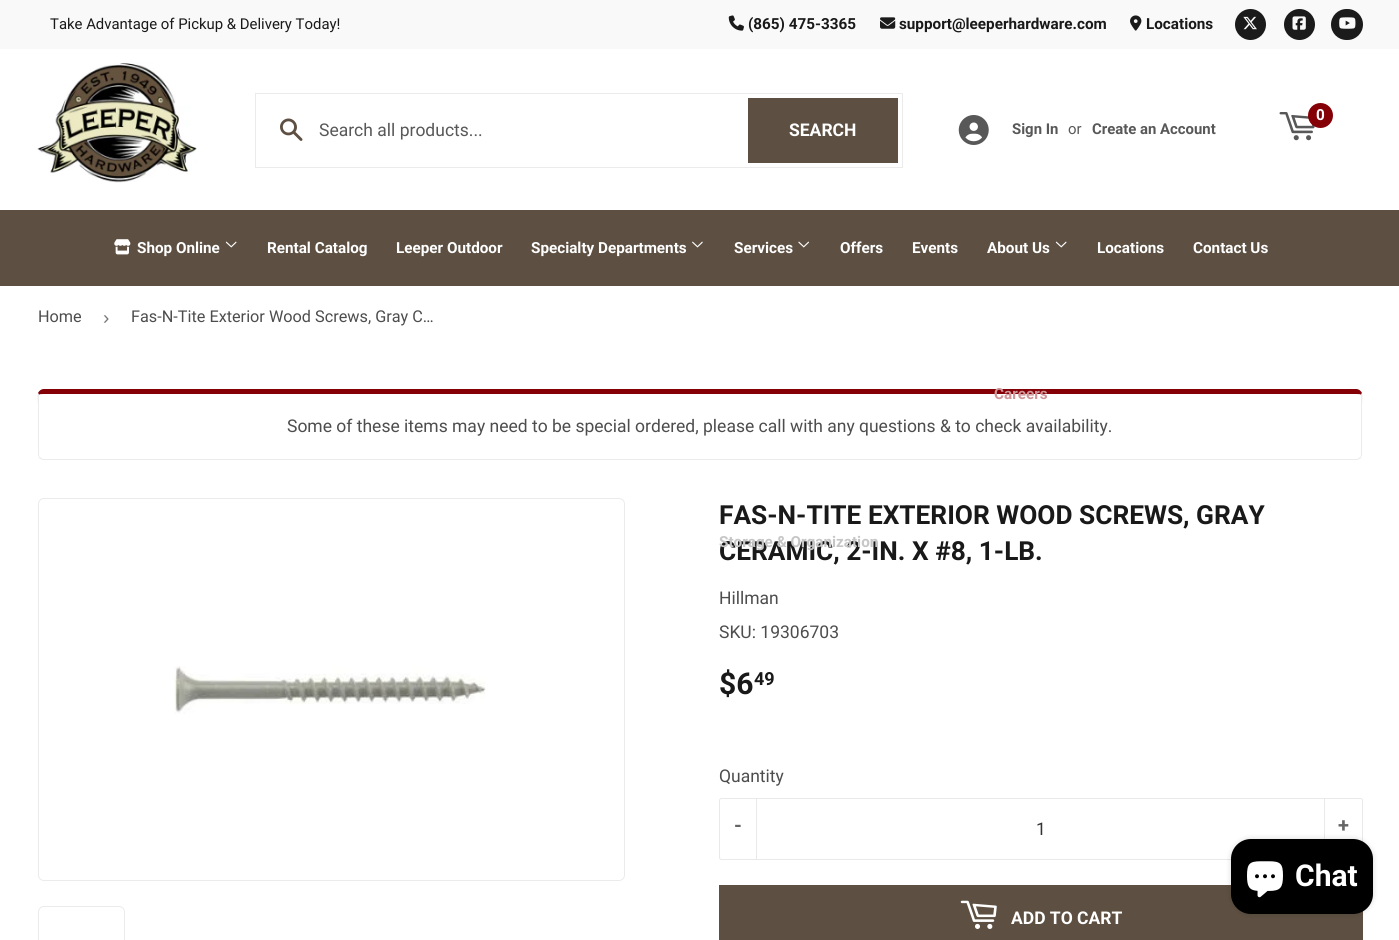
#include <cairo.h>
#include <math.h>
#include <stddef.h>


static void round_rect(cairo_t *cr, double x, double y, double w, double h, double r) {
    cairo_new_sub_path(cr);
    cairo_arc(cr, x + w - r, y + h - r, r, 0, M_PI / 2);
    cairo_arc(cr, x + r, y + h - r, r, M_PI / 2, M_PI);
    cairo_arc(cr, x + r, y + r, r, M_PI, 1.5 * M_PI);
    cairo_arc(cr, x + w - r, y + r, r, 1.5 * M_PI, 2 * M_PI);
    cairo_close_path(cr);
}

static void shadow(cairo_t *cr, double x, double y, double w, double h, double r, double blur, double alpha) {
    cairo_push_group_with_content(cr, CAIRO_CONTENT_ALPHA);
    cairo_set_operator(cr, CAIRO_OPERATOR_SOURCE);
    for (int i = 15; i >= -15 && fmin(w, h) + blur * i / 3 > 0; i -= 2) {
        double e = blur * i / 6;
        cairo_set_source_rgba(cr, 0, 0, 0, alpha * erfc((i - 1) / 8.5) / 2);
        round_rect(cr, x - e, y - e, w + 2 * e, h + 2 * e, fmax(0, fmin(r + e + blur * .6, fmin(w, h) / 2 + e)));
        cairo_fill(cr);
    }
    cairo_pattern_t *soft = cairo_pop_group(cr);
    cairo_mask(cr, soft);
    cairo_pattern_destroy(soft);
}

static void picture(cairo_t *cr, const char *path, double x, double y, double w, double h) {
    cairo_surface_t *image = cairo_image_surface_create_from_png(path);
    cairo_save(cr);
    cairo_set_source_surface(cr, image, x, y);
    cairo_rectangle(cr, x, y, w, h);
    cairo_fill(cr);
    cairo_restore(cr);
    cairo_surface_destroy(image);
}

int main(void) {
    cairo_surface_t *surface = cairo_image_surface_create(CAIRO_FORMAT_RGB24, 1399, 940);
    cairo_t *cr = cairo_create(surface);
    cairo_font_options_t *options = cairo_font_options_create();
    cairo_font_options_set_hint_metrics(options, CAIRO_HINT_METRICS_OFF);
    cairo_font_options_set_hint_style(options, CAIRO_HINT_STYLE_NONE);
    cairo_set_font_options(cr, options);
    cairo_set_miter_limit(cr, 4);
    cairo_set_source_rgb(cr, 1, 1, 1);
    cairo_paint(cr);
    cairo_set_source_rgb(cr, 0.976, 0.976, 0.976);
    cairo_rectangle(cr, 0, 0, 1399, 49);
    cairo_fill(cr);
    cairo_select_font_face(cr, "Roboto", CAIRO_FONT_SLANT_NORMAL, CAIRO_FONT_WEIGHT_NORMAL);
    cairo_set_font_size(cr, 14.9);
    cairo_set_source_rgb(cr, 0.098, 0.098, 0.098);
    cairo_move_to(cr, 50, 29);
    cairo_show_text(cr, "Take Advantage of Pickup & Delivery Today!");
    picture(cr, "img1.png", 728, 15, 16, 16);
    cairo_select_font_face(cr, "Roboto", CAIRO_FONT_SLANT_NORMAL, CAIRO_FONT_WEIGHT_BOLD);
    cairo_set_font_size(cr, 15.25);
    cairo_move_to(cr, 748, 29);
    cairo_show_text(cr, "(865) 475-3365");
    picture(cr, "img2.png", 880, 17, 16, 12);
    cairo_move_to(cr, 899, 29);
    cairo_show_text(cr, "support@leeperhardware.com");
    picture(cr, "img3.png", 1130, 15, 12, 16);
    cairo_move_to(cr, 1146, 29);
    cairo_show_text(cr, "Locations");
    cairo_set_source_rgb(cr, 0.106, 0.106, 0.106);
    cairo_new_path(cr);
    cairo_arc(cr, 1250.5, 24.5, 15.5, 0, 2 * M_PI);
    cairo_fill(cr);
    picture(cr, "img4.png", 1243, 16, 14, 14);
    cairo_arc(cr, 1299.5, 24.5, 15.5, 0, 2 * M_PI);
    cairo_fill(cr);
    picture(cr, "img5.png", 1292, 16, 14, 14);
    round_rect(cr, 1331, 9, 32, 31, 15.5);
    cairo_fill(cr);
    picture(cr, "img6.png", 1339, 17, 17, 12);
    picture(cr, "img7.png", 37, 62, 160, 121);
    cairo_rectangle(cr, 255.5, 93.5, 647, 74);
    cairo_set_source_rgb(cr, 0.918, 0.918, 0.918);
    cairo_set_line_width(cr, 1);
    cairo_stroke(cr);
    picture(cr, "img8.png", 280, 118, 23, 23);
    cairo_select_font_face(cr, "Roboto", CAIRO_FONT_SLANT_NORMAL, CAIRO_FONT_WEIGHT_NORMAL);
    cairo_set_font_size(cr, 17.5);
    cairo_set_source_rgb(cr, 0.345, 0.345, 0.345);
    cairo_move_to(cr, 319, 136);
    cairo_show_text(cr, "Search all products...");
    cairo_set_source_rgb(cr, 0.365, 0.314, 0.259);
    cairo_rectangle(cr, 748, 98, 150, 65);
    cairo_fill(cr);
    cairo_select_font_face(cr, "Roboto", CAIRO_FONT_SLANT_NORMAL, CAIRO_FONT_WEIGHT_BOLD);
    cairo_set_source_rgb(cr, 1, 1, 1);
    cairo_move_to(cr, 789, 136);
    cairo_show_text(cr, "SEARCH");
    picture(cr, "img9.png", 1279, 112, 36, 29);
    cairo_set_source_rgb(cr, 0.518, 0, 0.024);
    cairo_arc(cr, 1320.5, 115.5, 12.5, 0, 2 * M_PI);
    cairo_fill(cr);
    cairo_set_font_size(cr, 15.25);
    cairo_set_source_rgb(cr, 1, 1, 1);
    cairo_move_to(cr, 1316, 120);
    cairo_show_text(cr, "0");
    picture(cr, "img10.png", 958, 115, 31, 30);
    cairo_set_font_size(cr, 14.9);
    cairo_set_source_rgb(cr, 0.345, 0.345, 0.345);
    cairo_move_to(cr, 1012, 134);
    cairo_show_text(cr, "Sign In");
    cairo_select_font_face(cr, "Roboto", CAIRO_FONT_SLANT_NORMAL, CAIRO_FONT_WEIGHT_NORMAL);
    cairo_move_to(cr, 1068, 134);
    cairo_show_text(cr, "or");
    cairo_select_font_face(cr, "Roboto", CAIRO_FONT_SLANT_NORMAL, CAIRO_FONT_WEIGHT_BOLD);
    cairo_move_to(cr, 1092, 134);
    cairo_show_text(cr, "Create an Account");
    cairo_set_source_rgb(cr, 0.365, 0.314, 0.259);
    cairo_rectangle(cr, 0, 210, 1399, 76);
    cairo_fill(cr);
    picture(cr, "img11.png", 114, 239, 17, 16);
    cairo_set_font_size(cr, 15.25);
    cairo_set_source_rgb(cr, 1, 1, 1);
    cairo_move_to(cr, 137, 253);
    cairo_show_text(cr, "Shop Online");
    picture(cr, "img12.png", 225, 241, 12, 7);
    cairo_set_font_size(cr, 26.25);
    cairo_set_source_rgb(cr, 0.098, 0.098, 0.098);
    cairo_move_to(cr, 719, 560);
    cairo_show_text(cr, "CERAMIC, 2-IN. X #8, 1-LB.");
    cairo_set_font_size(cr, 15.25);
    cairo_set_source_rgb(cr, 0.776, 0.776, 0.776);
    cairo_move_to(cr, 719, 547);
    cairo_show_text(cr, "Storage & Organization");
    cairo_set_source_rgb(cr, 1, 1, 1);
    cairo_move_to(cr, 267, 253);
    cairo_show_text(cr, "Rental Catalog");
    cairo_move_to(cr, 396, 253);
    cairo_show_text(cr, "Leeper Outdoor");
    cairo_move_to(cr, 531, 253);
    cairo_show_text(cr, "Specialty Departments");
    picture(cr, "img13.png", 692, 241, 11, 7);
    cairo_move_to(cr, 734, 253);
    cairo_show_text(cr, "Services");
    picture(cr, "img14.png", 798, 241, 11, 7);
    cairo_move_to(cr, 840, 253);
    cairo_show_text(cr, "Offers");
    cairo_move_to(cr, 912, 253);
    cairo_show_text(cr, "Events");
    cairo_move_to(cr, 987, 253);
    cairo_show_text(cr, "About Us");
    picture(cr, "img12.png", 1055, 241, 12, 7);
    cairo_set_source_rgb(cr, 0.518, 0, 0.024);
    cairo_new_path(cr);
    cairo_move_to(cr, 44, 389);
    cairo_curve_to(cr, 41, 389, 39, 391, 38, 393);
    cairo_line_to(cr, 39, 395);
    cairo_curve_to(cr, 39, 394, 41, 394, 44, 394);
    cairo_line_to(cr, 1356, 394);
    cairo_curve_to(cr, 1359, 394, 1361, 394, 1361, 395);
    cairo_line_to(cr, 1362, 393);
    cairo_curve_to(cr, 1361, 391, 1359, 389, 1356, 389);
    cairo_close_path(cr);
    cairo_fill(cr);
    cairo_set_source_rgb(cr, 0.804, 0.592, 0.6);
    cairo_move_to(cr, 994, 399);
    cairo_show_text(cr, "Careers");
    cairo_set_source_rgb(cr, 1, 1, 1);
    cairo_move_to(cr, 1097, 253);
    cairo_show_text(cr, "Locations");
    cairo_move_to(cr, 1193, 253);
    cairo_show_text(cr, "Contact Us");
    cairo_select_font_face(cr, "Roboto", CAIRO_FONT_SLANT_NORMAL, CAIRO_FONT_WEIGHT_NORMAL);
    cairo_set_font_size(cr, 16.25);
    cairo_set_source_rgb(cr, 0.302, 0.302, 0.302);
    cairo_move_to(cr, 38, 322);
    cairo_show_text(cr, "Home");
    cairo_select_font_face(cr, "Liberation Sans", CAIRO_FONT_SLANT_NORMAL, CAIRO_FONT_WEIGHT_NORMAL);
    cairo_set_font_size(cr, 19);
    cairo_set_source_rgb(cr, 0.463, 0.463, 0.463);
    cairo_move_to(cr, 103, 324);
    cairo_show_text(cr, "›");
    cairo_select_font_face(cr, "Roboto", CAIRO_FONT_SLANT_NORMAL, CAIRO_FONT_WEIGHT_NORMAL);
    cairo_set_font_size(cr, 16.25);
    cairo_set_source_rgb(cr, 0.302, 0.302, 0.302);
    cairo_move_to(cr, 131, 322);
    cairo_show_text(cr, "Fas-N-Tite Exterior Wood Screws, Gray C…");
    cairo_set_source_rgb(cr, 0.918, 0.918, 0.918);
    cairo_new_path(cr);
    cairo_move_to(cr, 1362, 393);
    cairo_curve_to(cr, 1363, 396, 1362, 404, 1362, 405);
    cairo_line_to(cr, 1362, 455);
    cairo_line_to(cr, 1361, 458);
    cairo_line_to(cr, 1360, 457);
    cairo_curve_to(cr, 1361, 457, 1361, 455, 1361, 454);
    cairo_line_to(cr, 1361, 395);
    cairo_close_path(cr);
    cairo_fill(cr);
    cairo_new_path(cr);
    cairo_move_to(cr, 44, 460);
    cairo_line_to(cr, 1356, 460);
    cairo_curve_to(cr, 1358, 460, 1360, 459, 1361, 458);
    cairo_line_to(cr, 1360, 457);
    cairo_curve_to(cr, 1359, 458, 1358, 459, 1356, 459);
    cairo_line_to(cr, 44, 459);
    cairo_curve_to(cr, 42, 459, 41, 458, 40, 457);
    cairo_line_to(cr, 39, 458);
    cairo_curve_to(cr, 40, 459, 42, 460, 44, 460);
    cairo_close_path(cr);
    cairo_fill(cr);
    cairo_new_path(cr);
    cairo_move_to(cr, 38, 393);
    cairo_curve_to(cr, 37, 396, 38, 404, 38, 405);
    cairo_line_to(cr, 38, 455);
    cairo_line_to(cr, 39, 458);
    cairo_line_to(cr, 40, 457);
    cairo_curve_to(cr, 39, 457, 39, 455, 39, 454);
    cairo_line_to(cr, 39, 395);
    cairo_close_path(cr);
    cairo_fill(cr);
    cairo_set_font_size(cr, 17.5);
    cairo_set_source_rgb(cr, 0.302, 0.302, 0.302);
    cairo_move_to(cr, 287, 432);
    cairo_show_text(cr, "Some of these items may need to be special ordered, please call with any questions & to check availability.");
    round_rect(cr, 38.5, 498.5, 586, 382, 5.5);
    cairo_set_source_rgb(cr, 0.918, 0.918, 0.918);
    cairo_stroke(cr);
    picture(cr, "img15.png", 173, 666, 313, 48);
    round_rect(cr, 38.5, 906.5, 86, 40, 5.5);
    cairo_stroke(cr);
    cairo_select_font_face(cr, "Roboto", CAIRO_FONT_SLANT_NORMAL, CAIRO_FONT_WEIGHT_BOLD);
    cairo_set_font_size(cr, 26.25);
    cairo_set_source_rgb(cr, 0.098, 0.098, 0.098);
    cairo_move_to(cr, 719, 524);
    cairo_show_text(cr, "FAS-N-TITE EXTERIOR WOOD SCREWS, GRAY");
    cairo_select_font_face(cr, "Roboto", CAIRO_FONT_SLANT_NORMAL, CAIRO_FONT_WEIGHT_NORMAL);
    cairo_set_font_size(cr, 17.5);
    cairo_set_source_rgb(cr, 0.302, 0.302, 0.302);
    cairo_move_to(cr, 719, 604);
    cairo_show_text(cr, "Hillman");
    cairo_move_to(cr, 719, 638);
    cairo_show_text(cr, "SKU: 19306703");
    cairo_select_font_face(cr, "Roboto", CAIRO_FONT_SLANT_NORMAL, CAIRO_FONT_WEIGHT_BOLD);
    cairo_set_font_size(cr, 30);
    cairo_set_source_rgb(cr, 0.098, 0.098, 0.098);
    cairo_move_to(cr, 719, 694);
    cairo_show_text(cr, "$6");
    cairo_set_font_size(cr, 18);
    cairo_move_to(cr, 754, 685);
    cairo_show_text(cr, "49");
    cairo_select_font_face(cr, "Roboto", CAIRO_FONT_SLANT_NORMAL, CAIRO_FONT_WEIGHT_NORMAL);
    cairo_set_font_size(cr, 17.5);
    cairo_set_source_rgb(cr, 0.302, 0.302, 0.302);
    cairo_move_to(cr, 719, 782);
    cairo_show_text(cr, "Quantity");
    round_rect(cr, 719.5, 798.5, 643, 61, 2);
    cairo_set_source_rgb(cr, 0.914, 0.914, 0.914);
    cairo_stroke(cr);
    cairo_rectangle(cr, 756, 799, 1, 60);
    cairo_fill(cr);
    cairo_select_font_face(cr, "Roboto", CAIRO_FONT_SLANT_NORMAL, CAIRO_FONT_WEIGHT_BOLD);
    cairo_set_font_size(cr, 20);
    cairo_set_source_rgb(cr, 0.4, 0.4, 0.4);
    cairo_move_to(cr, 734, 832);
    cairo_show_text(cr, "-");
    cairo_select_font_face(cr, "Roboto", CAIRO_FONT_SLANT_NORMAL, CAIRO_FONT_WEIGHT_NORMAL);
    cairo_set_font_size(cr, 17.5);
    cairo_set_source_rgb(cr, 0.2, 0.2, 0.2);
    cairo_move_to(cr, 1036, 835);
    cairo_show_text(cr, "1");
    cairo_set_source_rgb(cr, 0.914, 0.914, 0.914);
    cairo_rectangle(cr, 1324, 799, 1, 40);
    cairo_fill(cr);
    cairo_select_font_face(cr, "Roboto", CAIRO_FONT_SLANT_NORMAL, CAIRO_FONT_WEIGHT_BOLD);
    cairo_set_font_size(cr, 20);
    cairo_set_source_rgb(cr, 0.4, 0.4, 0.4);
    cairo_move_to(cr, 1338, 832);
    cairo_show_text(cr, "+");
    cairo_set_source_rgb(cr, 0.365, 0.314, 0.259);
    cairo_rectangle(cr, 719, 885, 644, 55);
    cairo_fill(cr);
    picture(cr, "img16.png", 960, 900, 37, 29);
    cairo_set_font_size(cr, 17.5);
    cairo_set_source_rgb(cr, 1, 1, 1);
    cairo_move_to(cr, 1011, 924);
    cairo_show_text(cr, "ADD TO CART");
    cairo_set_source_rgb(cr, 0, 0, 0);
    shadow(cr, 1231, 839, 142, 75, 20, 3, 0.15);
    cairo_set_source_rgb(cr, 0, 0, 0);
    round_rect(cr, 1231, 839, 142, 75, 20);
    cairo_fill(cr);
    picture(cr, "img17.png", 1247, 861, 36, 37);
    cairo_set_font_size(cr, 30);
    cairo_set_source_rgb(cr, 1, 1, 1);
    cairo_move_to(cr, 1295, 886);
    cairo_show_text(cr, "Chat");
    cairo_surface_write_to_png(surface, "page.png");
    cairo_font_options_destroy(options);
    cairo_destroy(cr);
    cairo_surface_destroy(surface);
    return 0;
}
